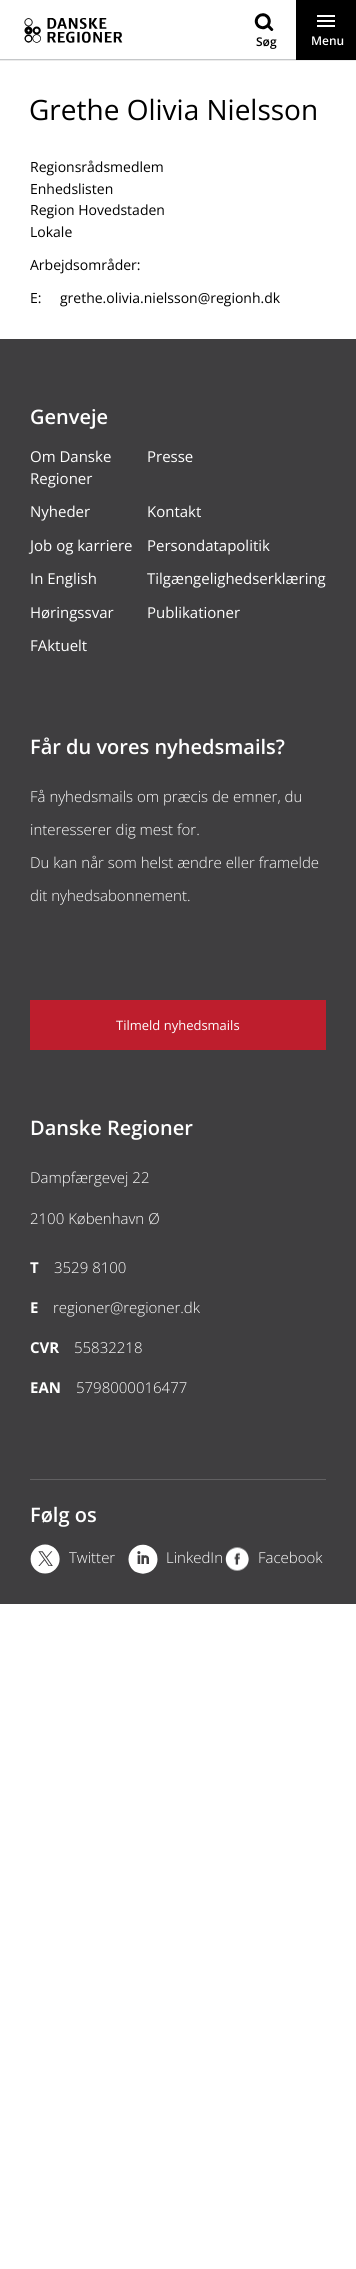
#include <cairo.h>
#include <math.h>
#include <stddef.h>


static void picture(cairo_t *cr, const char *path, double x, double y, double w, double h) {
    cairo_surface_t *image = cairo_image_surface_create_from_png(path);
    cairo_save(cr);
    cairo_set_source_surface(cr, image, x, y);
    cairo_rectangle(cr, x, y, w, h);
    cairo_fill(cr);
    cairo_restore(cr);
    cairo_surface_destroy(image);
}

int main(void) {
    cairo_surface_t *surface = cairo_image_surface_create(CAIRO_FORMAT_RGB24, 356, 2269);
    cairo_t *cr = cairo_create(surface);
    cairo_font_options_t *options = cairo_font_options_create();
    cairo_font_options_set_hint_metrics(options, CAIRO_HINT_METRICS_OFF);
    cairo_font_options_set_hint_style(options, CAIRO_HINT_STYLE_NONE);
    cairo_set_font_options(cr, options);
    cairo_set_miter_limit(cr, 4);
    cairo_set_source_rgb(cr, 1, 1, 1);
    cairo_paint(cr);
    cairo_set_source_rgb(cr, 0.773, 0.78, 0.788);
    cairo_rectangle(cr, 0, 59, 296, 1);
    cairo_fill(cr);
    picture(cr, "img1.png", 24, 18, 99, 25);
    picture(cr, "img2.png", 254, 13, 20, 18);
    cairo_select_font_face(cr, "Open Sans SemiBold", CAIRO_FONT_SLANT_NORMAL, CAIRO_FONT_WEIGHT_NORMAL);
    cairo_set_font_size(cr, 12);
    cairo_set_source_rgb(cr, 0, 0, 0);
    cairo_move_to(cr, 256, 46);
    cairo_show_text(cr, "Søg");
    cairo_rectangle(cr, 296, 0, 60, 60);
    cairo_fill(cr);
    cairo_set_source_rgb(cr, 1, 1, 1);
    cairo_rectangle(cr, 317, 15, 18, 2);
    cairo_fill(cr);
    cairo_rectangle(cr, 317, 20, 18, 2);
    cairo_fill(cr);
    cairo_rectangle(cr, 317, 25, 18, 2);
    cairo_fill(cr);
    cairo_move_to(cr, 311, 45);
    cairo_show_text(cr, "Menu");
    cairo_set_source_rgb(cr, 0.925, 0.925, 0.925);
    cairo_rectangle(cr, 0, 60, 356, 1);
    cairo_fill(cr);
    cairo_select_font_face(cr, "Open Sans", CAIRO_FONT_SLANT_NORMAL, CAIRO_FONT_WEIGHT_NORMAL);
    cairo_set_font_size(cr, 28);
    cairo_set_source_rgb(cr, 0, 0, 0);
    cairo_move_to(cr, 29, 120);
    cairo_show_text(cr, "Grethe Olivia Nielsson");
    cairo_set_font_size(cr, 14);
    cairo_move_to(cr, 30, 172);
    cairo_show_text(cr, "Regionsrådsmedlem");
    cairo_move_to(cr, 30, 194);
    cairo_show_text(cr, "Enhedslisten");
    cairo_move_to(cr, 30, 215);
    cairo_show_text(cr, "Region Hovedstaden");
    cairo_move_to(cr, 30, 237);
    cairo_show_text(cr, "Lokale");
    cairo_move_to(cr, 30, 270);
    cairo_show_text(cr, "Arbejdsområder:");
    cairo_move_to(cr, 30, 303);
    cairo_show_text(cr, "E:");
    cairo_move_to(cr, 60, 303);
    cairo_show_text(cr, "grethe.olivia.nielsson@regionh.dk");
    cairo_set_source_rgb(cr, 0.247, 0.243, 0.251);
    cairo_rectangle(cr, 0, 339, 356, 1265);
    cairo_fill(cr);
    cairo_select_font_face(cr, "Open Sans SemiBold", CAIRO_FONT_SLANT_NORMAL, CAIRO_FONT_WEIGHT_NORMAL);
    cairo_set_font_size(cr, 20);
    cairo_set_source_rgb(cr, 1, 1, 1);
    cairo_move_to(cr, 30, 424);
    cairo_show_text(cr, "Genveje");
    cairo_select_font_face(cr, "Open Sans", CAIRO_FONT_SLANT_NORMAL, CAIRO_FONT_WEIGHT_NORMAL);
    cairo_set_font_size(cr, 15);
    cairo_move_to(cr, 30, 462);
    cairo_show_text(cr, "Om Danske");
    cairo_move_to(cr, 30, 484);
    cairo_show_text(cr, "Regioner");
    cairo_move_to(cr, 147, 462);
    cairo_show_text(cr, "Presse");
    cairo_move_to(cr, 30, 517);
    cairo_show_text(cr, "Nyheder");
    cairo_move_to(cr, 147, 517);
    cairo_show_text(cr, "Kontakt");
    cairo_move_to(cr, 30, 551);
    cairo_show_text(cr, "Job og karriere");
    cairo_move_to(cr, 147, 551);
    cairo_show_text(cr, "Persondatapolitik");
    cairo_move_to(cr, 30, 584);
    cairo_show_text(cr, "In English");
    cairo_move_to(cr, 147, 584);
    cairo_show_text(cr, "Tilgængelighedserklæring");
    cairo_move_to(cr, 30, 618);
    cairo_show_text(cr, "Høringssvar");
    cairo_move_to(cr, 147, 618);
    cairo_show_text(cr, "Publikationer");
    cairo_move_to(cr, 30, 651);
    cairo_show_text(cr, "FAktuelt");
    cairo_select_font_face(cr, "Open Sans SemiBold", CAIRO_FONT_SLANT_NORMAL, CAIRO_FONT_WEIGHT_NORMAL);
    cairo_set_font_size(cr, 20);
    cairo_move_to(cr, 30, 754);
    cairo_show_text(cr, "Får du vores nyhedsmails?");
    cairo_select_font_face(cr, "Open Sans Light", CAIRO_FONT_SLANT_NORMAL, CAIRO_FONT_WEIGHT_NORMAL);
    cairo_set_font_size(cr, 15);
    cairo_move_to(cr, 30, 802);
    cairo_show_text(cr, "Få nyhedsmails om præcis de emner, du");
    cairo_move_to(cr, 30, 835);
    cairo_show_text(cr, "interesserer dig mest for.");
    cairo_move_to(cr, 30, 868);
    cairo_show_text(cr, "Du kan når som helst ændre eller framelde");
    cairo_move_to(cr, 30, 901);
    cairo_show_text(cr, "dit nyhedsabonnement.");
    cairo_set_source_rgb(cr, 0.745, 0.118, 0.176);
    cairo_rectangle(cr, 30, 1000, 296, 50);
    cairo_fill(cr);
    cairo_select_font_face(cr, "Open Sans", CAIRO_FONT_SLANT_NORMAL, CAIRO_FONT_WEIGHT_NORMAL);
    cairo_set_font_size(cr, 13);
    cairo_set_source_rgb(cr, 1, 1, 1);
    cairo_move_to(cr, 116, 1030);
    cairo_show_text(cr, "Tilmeld nyhedsmails");
    cairo_select_font_face(cr, "Open Sans SemiBold", CAIRO_FONT_SLANT_NORMAL, CAIRO_FONT_WEIGHT_NORMAL);
    cairo_set_font_size(cr, 20);
    cairo_move_to(cr, 30, 1135);
    cairo_show_text(cr, "Danske Regioner");
    cairo_select_font_face(cr, "Open Sans Light", CAIRO_FONT_SLANT_NORMAL, CAIRO_FONT_WEIGHT_NORMAL);
    cairo_set_font_size(cr, 15);
    cairo_move_to(cr, 30, 1183);
    cairo_show_text(cr, "Dampfærgevej 22");
    cairo_move_to(cr, 30, 1224);
    cairo_show_text(cr, "2100 København Ø");
    cairo_select_font_face(cr, "Open Sans", CAIRO_FONT_SLANT_NORMAL, CAIRO_FONT_WEIGHT_BOLD);
    cairo_move_to(cr, 30, 1273);
    cairo_show_text(cr, "T");
    cairo_select_font_face(cr, "Open Sans Light", CAIRO_FONT_SLANT_NORMAL, CAIRO_FONT_WEIGHT_NORMAL);
    cairo_move_to(cr, 54, 1273);
    cairo_show_text(cr, "3529 8100");
    cairo_select_font_face(cr, "Open Sans", CAIRO_FONT_SLANT_NORMAL, CAIRO_FONT_WEIGHT_BOLD);
    cairo_move_to(cr, 30, 1313);
    cairo_show_text(cr, "E");
    cairo_select_font_face(cr, "Open Sans Light", CAIRO_FONT_SLANT_NORMAL, CAIRO_FONT_WEIGHT_NORMAL);
    cairo_move_to(cr, 53, 1313);
    cairo_show_text(cr, "regioner@regioner.dk");
    cairo_select_font_face(cr, "Open Sans", CAIRO_FONT_SLANT_NORMAL, CAIRO_FONT_WEIGHT_BOLD);
    cairo_move_to(cr, 30, 1353);
    cairo_show_text(cr, "CVR");
    cairo_select_font_face(cr, "Open Sans Light", CAIRO_FONT_SLANT_NORMAL, CAIRO_FONT_WEIGHT_NORMAL);
    cairo_move_to(cr, 74, 1353);
    cairo_show_text(cr, "55832218");
    cairo_select_font_face(cr, "Open Sans", CAIRO_FONT_SLANT_NORMAL, CAIRO_FONT_WEIGHT_BOLD);
    cairo_move_to(cr, 30, 1393);
    cairo_show_text(cr, "EAN");
    cairo_select_font_face(cr, "Open Sans Light", CAIRO_FONT_SLANT_NORMAL, CAIRO_FONT_WEIGHT_NORMAL);
    cairo_move_to(cr, 76, 1393);
    cairo_show_text(cr, "5798000016477");
    cairo_set_source_rgb(cr, 0.38, 0.376, 0.384);
    cairo_rectangle(cr, 30, 1479, 296, 1);
    cairo_fill(cr);
    cairo_select_font_face(cr, "Open Sans SemiBold", CAIRO_FONT_SLANT_NORMAL, CAIRO_FONT_WEIGHT_NORMAL);
    cairo_set_font_size(cr, 20);
    cairo_set_source_rgb(cr, 1, 1, 1);
    cairo_move_to(cr, 30, 1522);
    cairo_show_text(cr, "Følg os");
    picture(cr, "img3.png", 30, 1544, 30, 30);
    cairo_select_font_face(cr, "Open Sans Light", CAIRO_FONT_SLANT_NORMAL, CAIRO_FONT_WEIGHT_NORMAL);
    cairo_set_font_size(cr, 15);
    cairo_move_to(cr, 69, 1563);
    cairo_show_text(cr, "Twitter");
    picture(cr, "img4.png", 128, 1544, 30, 30);
    cairo_move_to(cr, 166, 1563);
    cairo_show_text(cr, "LinkedIn");
    picture(cr, "img5.png", 225, 1547, 24, 24);
    cairo_move_to(cr, 258, 1563);
    cairo_show_text(cr, "Facebook");
    cairo_surface_write_to_png(surface, "page.png");
    cairo_font_options_destroy(options);
    cairo_destroy(cr);
    cairo_surface_destroy(surface);
    return 0;
}
